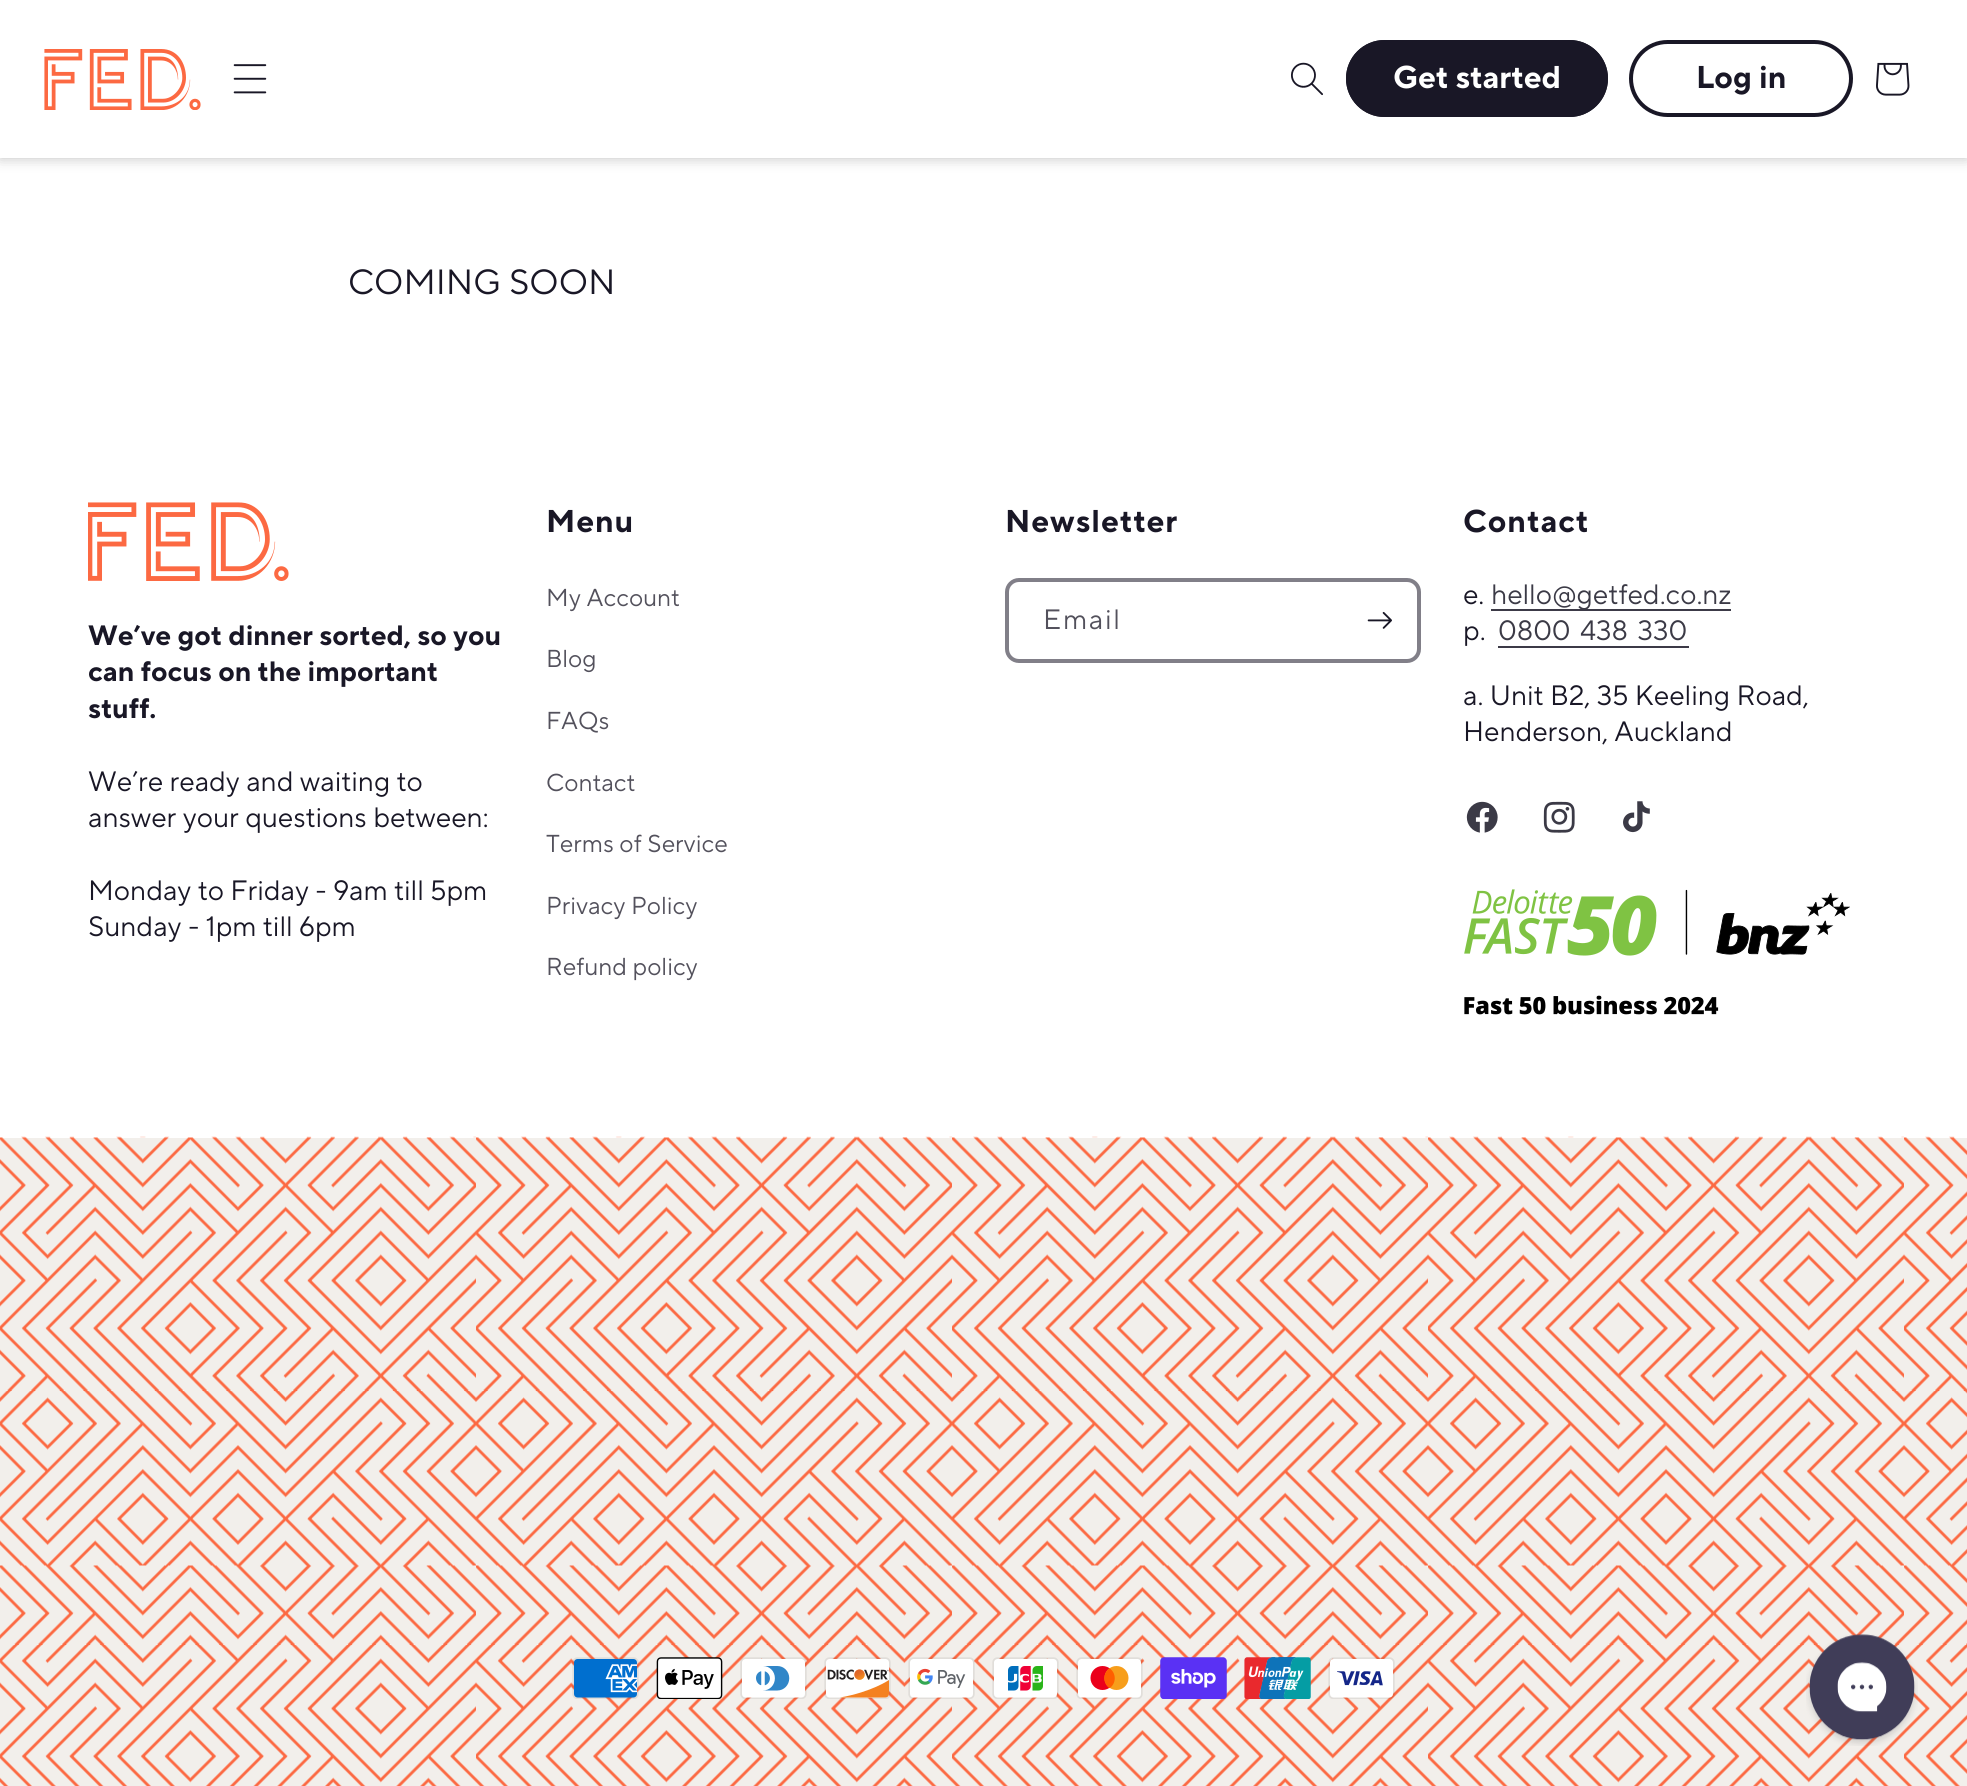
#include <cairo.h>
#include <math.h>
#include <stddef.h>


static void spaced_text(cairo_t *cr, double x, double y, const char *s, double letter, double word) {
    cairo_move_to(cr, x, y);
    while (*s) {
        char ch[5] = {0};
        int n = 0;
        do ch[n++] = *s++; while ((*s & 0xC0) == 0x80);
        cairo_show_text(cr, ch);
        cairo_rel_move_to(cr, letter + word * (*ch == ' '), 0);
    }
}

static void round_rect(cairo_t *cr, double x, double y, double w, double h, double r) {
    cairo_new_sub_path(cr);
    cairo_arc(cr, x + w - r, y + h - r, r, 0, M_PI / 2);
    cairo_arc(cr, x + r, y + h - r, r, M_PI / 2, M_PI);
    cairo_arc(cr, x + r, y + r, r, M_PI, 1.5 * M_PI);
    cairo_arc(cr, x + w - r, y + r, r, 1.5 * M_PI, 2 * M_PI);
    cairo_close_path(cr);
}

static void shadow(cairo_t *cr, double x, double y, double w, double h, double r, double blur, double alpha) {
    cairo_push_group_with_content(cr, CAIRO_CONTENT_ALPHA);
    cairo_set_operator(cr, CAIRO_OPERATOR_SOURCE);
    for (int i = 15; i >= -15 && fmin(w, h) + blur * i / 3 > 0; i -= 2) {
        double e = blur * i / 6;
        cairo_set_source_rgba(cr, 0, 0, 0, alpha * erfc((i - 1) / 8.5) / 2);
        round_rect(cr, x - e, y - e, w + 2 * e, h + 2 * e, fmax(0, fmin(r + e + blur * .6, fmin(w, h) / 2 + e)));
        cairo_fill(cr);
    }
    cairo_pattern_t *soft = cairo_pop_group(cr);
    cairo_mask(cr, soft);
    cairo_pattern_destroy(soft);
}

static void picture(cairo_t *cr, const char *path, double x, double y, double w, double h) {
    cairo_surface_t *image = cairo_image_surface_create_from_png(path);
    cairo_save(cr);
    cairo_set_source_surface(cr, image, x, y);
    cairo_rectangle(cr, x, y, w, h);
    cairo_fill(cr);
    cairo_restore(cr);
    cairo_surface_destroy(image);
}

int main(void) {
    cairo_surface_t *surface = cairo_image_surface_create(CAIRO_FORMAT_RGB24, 1967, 1786);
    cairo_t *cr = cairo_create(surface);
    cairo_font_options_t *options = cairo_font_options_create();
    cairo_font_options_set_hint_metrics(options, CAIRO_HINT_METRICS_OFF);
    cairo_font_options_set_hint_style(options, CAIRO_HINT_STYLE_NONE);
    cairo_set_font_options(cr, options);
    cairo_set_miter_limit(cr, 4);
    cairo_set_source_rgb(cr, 1, 1, 1);
    cairo_paint(cr);
    cairo_set_source_rgb(cr, 0, 0, 0);
    shadow(cr, 0, 0, 1967, 158, 0, 7, 0.25);
    cairo_set_source_rgb(cr, 1, 1, 1);
    cairo_rectangle(cr, 0, 0, 1967, 158);
    cairo_fill(cr);
    picture(cr, "img1.png", 44, 49, 157, 61);
    picture(cr, "img2.png", 233, 64, 34, 30);
    picture(cr, "img3.png", 1291, 62, 32, 34);
    cairo_set_source_rgb(cr, 0.098, 0.09, 0.149);
    round_rect(cr, 1346, 40, 262, 77, 38.5);
    cairo_fill(cr);
    round_rect(cr, 1349.5, 43.5, 255, 70, 35);
    cairo_set_line_width(cr, 7);
    cairo_stroke(cr);
    cairo_select_font_face(cr, "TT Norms", CAIRO_FONT_SLANT_NORMAL, CAIRO_FONT_WEIGHT_BOLD);
    cairo_set_font_size(cr, 31.5);
    cairo_set_source_rgb(cr, 1, 1, 1);
    cairo_move_to(cr, 1393, 88);
    cairo_show_text(cr, "Get started");
    round_rect(cr, 1631, 42, 220, 73, 36.5);
    cairo_set_source_rgb(cr, 0.098, 0.09, 0.149);
    cairo_set_line_width(cr, 4);
    cairo_stroke(cr);
    cairo_move_to(cr, 1696, 88);
    cairo_show_text(cr, "Log in");
    picture(cr, "img4.png", 1876, 62, 34, 34);
    cairo_select_font_face(cr, "TT Norms", CAIRO_FONT_SLANT_NORMAL, CAIRO_FONT_WEIGHT_NORMAL);
    cairo_set_font_size(cr, 35);
    cairo_move_to(cr, 348, 294);
    cairo_show_text(cr, "COMING SOON");
    picture(cr, "img5.png", 88, 502, 201, 79);
    cairo_select_font_face(cr, "TT Norms", CAIRO_FONT_SLANT_NORMAL, CAIRO_FONT_WEIGHT_BOLD);
    cairo_set_font_size(cr, 28);
    cairo_move_to(cr, 88, 645);
    cairo_show_text(cr, "We’ve got dinner sorted, so you");
    cairo_move_to(cr, 88, 681);
    cairo_show_text(cr, "can focus on the important");
    cairo_move_to(cr, 88, 718);
    cairo_show_text(cr, "stuff.");
    cairo_select_font_face(cr, "TT Norms", CAIRO_FONT_SLANT_NORMAL, CAIRO_FONT_WEIGHT_NORMAL);
    cairo_move_to(cr, 88, 791);
    cairo_show_text(cr, "We’re ready and waiting to");
    cairo_move_to(cr, 88, 827);
    cairo_show_text(cr, "answer your questions between:");
    cairo_move_to(cr, 88, 900);
    cairo_show_text(cr, "Monday to Friday - 9am till 5pm");
    cairo_move_to(cr, 88, 936);
    cairo_show_text(cr, "Sunday - 1pm till 6pm");
    cairo_select_font_face(cr, "TT Norms", CAIRO_FONT_SLANT_NORMAL, CAIRO_FONT_WEIGHT_BOLD);
    cairo_set_font_size(cr, 31.5);
    spaced_text(cr, 546, 532, "Menu", 1, 0);
    cairo_select_font_face(cr, "TT Norms", CAIRO_FONT_SLANT_NORMAL, CAIRO_FONT_WEIGHT_NORMAL);
    cairo_set_font_size(cr, 24.5);
    cairo_set_source_rgb(cr, 0.325, 0.318, 0.361);
    cairo_move_to(cr, 546, 606);
    cairo_show_text(cr, "My Account");
    cairo_move_to(cr, 546, 667);
    cairo_show_text(cr, "Blog");
    cairo_move_to(cr, 546, 729);
    cairo_show_text(cr, "FAQs");
    cairo_move_to(cr, 546, 791);
    cairo_show_text(cr, "Contact");
    cairo_move_to(cr, 546, 852);
    cairo_show_text(cr, "Terms of Service");
    cairo_move_to(cr, 546, 914);
    cairo_show_text(cr, "Privacy Policy");
    cairo_move_to(cr, 546, 975);
    cairo_show_text(cr, "Refund policy");
    cairo_select_font_face(cr, "TT Norms", CAIRO_FONT_SLANT_NORMAL, CAIRO_FONT_WEIGHT_BOLD);
    cairo_set_font_size(cr, 31.5);
    cairo_set_source_rgb(cr, 0.098, 0.09, 0.149);
    spaced_text(cr, 1005, 532, "Newsletter", 1, 0);
    round_rect(cr, 1007, 580, 412, 81, 12);
    cairo_set_source_rgb(cr, 0.506, 0.498, 0.533);
    cairo_stroke(cr);
    cairo_select_font_face(cr, "TT Norms", CAIRO_FONT_SLANT_NORMAL, CAIRO_FONT_WEIGHT_NORMAL);
    cairo_set_font_size(cr, 28);
    cairo_set_source_rgb(cr, 0.325, 0.318, 0.361);
    spaced_text(cr, 1043, 629, "Email", 1.75, 0);
    picture(cr, "img6.png", 1367, 611, 25, 18);
    cairo_select_font_face(cr, "TT Norms", CAIRO_FONT_SLANT_NORMAL, CAIRO_FONT_WEIGHT_BOLD);
    cairo_set_font_size(cr, 31.5);
    cairo_set_source_rgb(cr, 0.098, 0.09, 0.149);
    spaced_text(cr, 1463, 532, "Contact", 1, 0);
    cairo_select_font_face(cr, "TT Norms", CAIRO_FONT_SLANT_NORMAL, CAIRO_FONT_WEIGHT_NORMAL);
    cairo_set_font_size(cr, 28);
    cairo_move_to(cr, 1463, 604);
    cairo_show_text(cr, "e.");
    cairo_set_source_rgb(cr, 0.235, 0.227, 0.278);
    cairo_rectangle(cr, 1491, 609, 240, 2);
    cairo_fill(cr);
    cairo_set_source_rgb(cr, 0.231, 0.227, 0.275);
    cairo_move_to(cr, 1491, 604);
    cairo_show_text(cr, "hello@getfed.co.nz");
    cairo_set_source_rgb(cr, 0.098, 0.09, 0.149);
    cairo_move_to(cr, 1463, 640);
    cairo_show_text(cr, "p.");
    cairo_set_source_rgb(cr, 0.231, 0.227, 0.275);
    spaced_text(cr, 1498, 640, "0800 438 330", 0, 3);
    cairo_set_source_rgb(cr, 0.235, 0.227, 0.278);
    cairo_rectangle(cr, 1498, 646, 191, 2);
    cairo_fill(cr);
    cairo_set_source_rgb(cr, 0.098, 0.09, 0.149);
    cairo_move_to(cr, 1463, 705);
    cairo_show_text(cr, "a. Unit B2, 35 Keeling Road,");
    cairo_move_to(cr, 1463, 741);
    cairo_show_text(cr, "Henderson, Auckland");
    picture(cr, "img7.png", 1466, 801, 32, 32);
    picture(cr, "img8.png", 1543, 801, 32, 32);
    picture(cr, "img9.png", 1623, 801, 27, 32);
    picture(cr, "img10.png", 1464, 889, 386, 126);
    cairo_set_source_rgb(cr, 0.949, 0.937, 0.918);
    cairo_rectangle(cr, 0, 1138, 1967, 648);
    cairo_fill(cr);
    picture(cr, "img11.png", 0, 1136, 1967, 650);
    picture(cr, "img12.png", 572, 1657, 67, 42);
    picture(cr, "img13.png", 656, 1657, 67, 42);
    picture(cr, "img14.png", 740, 1657, 67, 42);
    picture(cr, "img15.png", 824, 1657, 67, 42);
    picture(cr, "img16.png", 908, 1657, 67, 42);
    picture(cr, "img17.png", 992, 1657, 67, 42);
    picture(cr, "img18.png", 1076, 1657, 67, 42);
    picture(cr, "img19.png", 1160, 1657, 67, 42);
    picture(cr, "img20.png", 1244, 1657, 67, 42);
    picture(cr, "img21.png", 1328, 1657, 67, 42);
    picture(cr, "img22.png", 1806, 1634, 112, 112);
    cairo_surface_write_to_png(surface, "page.png");
    cairo_font_options_destroy(options);
    cairo_destroy(cr);
    cairo_surface_destroy(surface);
    return 0;
}
